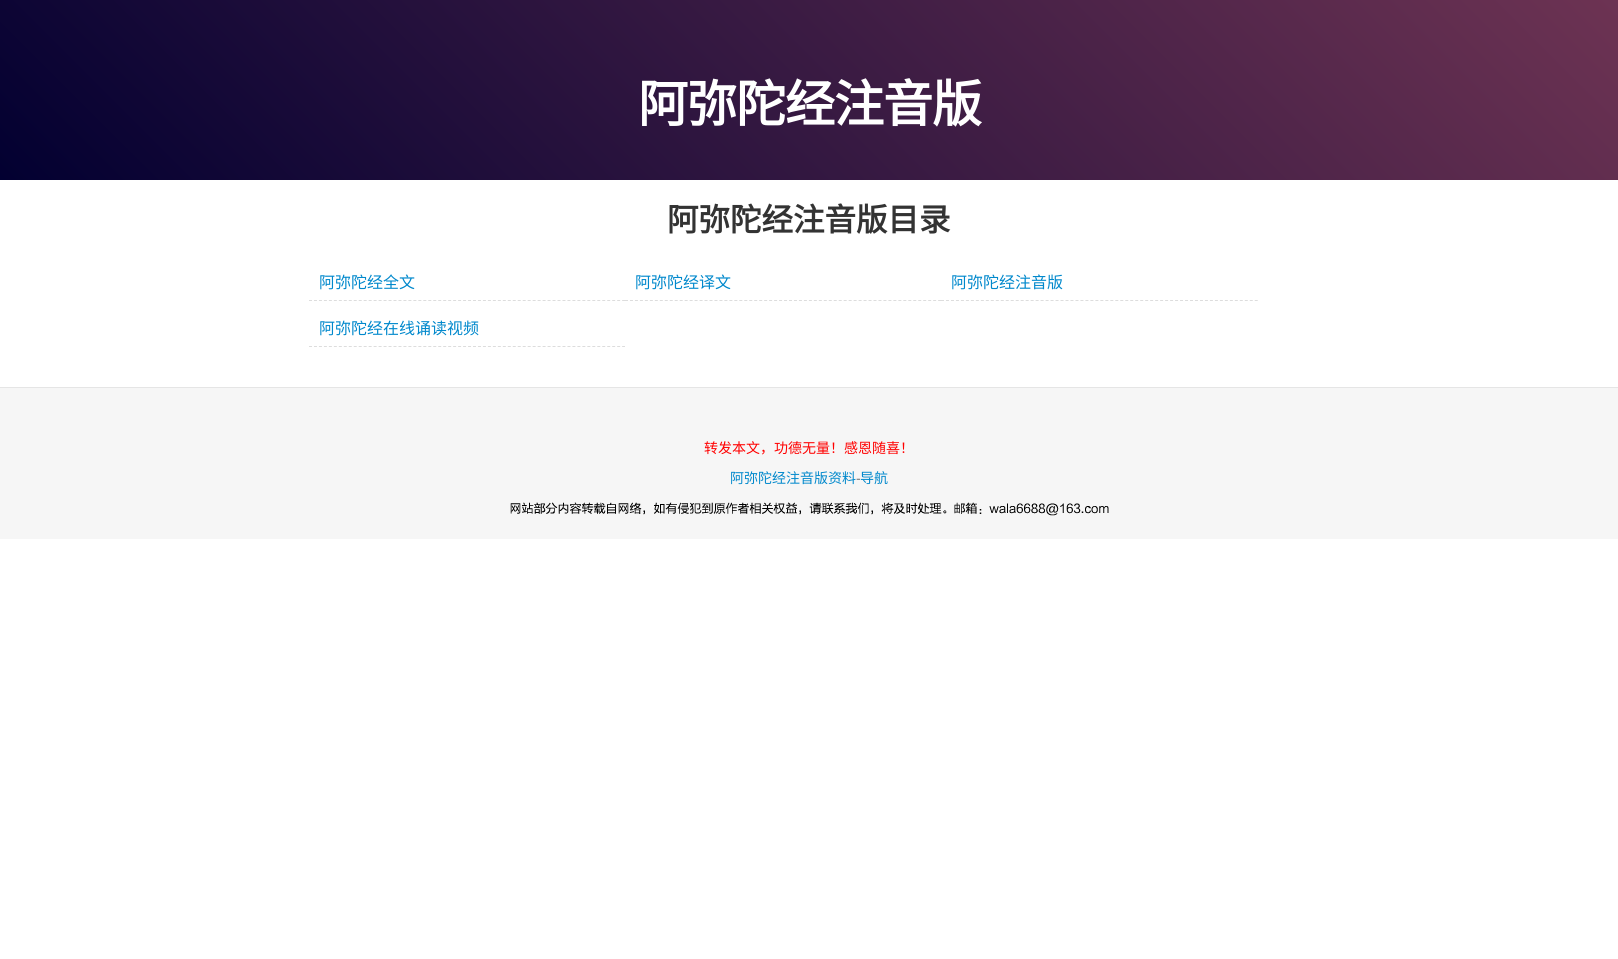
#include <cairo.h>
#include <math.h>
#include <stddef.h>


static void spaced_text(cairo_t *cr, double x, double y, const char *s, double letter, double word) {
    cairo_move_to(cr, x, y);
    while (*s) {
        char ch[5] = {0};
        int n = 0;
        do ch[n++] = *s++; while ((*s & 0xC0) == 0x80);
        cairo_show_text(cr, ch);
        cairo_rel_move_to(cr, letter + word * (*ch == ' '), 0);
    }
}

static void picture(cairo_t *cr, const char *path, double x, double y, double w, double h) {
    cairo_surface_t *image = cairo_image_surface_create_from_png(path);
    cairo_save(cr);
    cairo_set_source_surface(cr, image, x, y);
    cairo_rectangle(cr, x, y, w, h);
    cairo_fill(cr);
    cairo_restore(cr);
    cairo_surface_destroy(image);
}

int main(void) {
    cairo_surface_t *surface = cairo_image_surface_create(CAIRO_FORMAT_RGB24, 1618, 959);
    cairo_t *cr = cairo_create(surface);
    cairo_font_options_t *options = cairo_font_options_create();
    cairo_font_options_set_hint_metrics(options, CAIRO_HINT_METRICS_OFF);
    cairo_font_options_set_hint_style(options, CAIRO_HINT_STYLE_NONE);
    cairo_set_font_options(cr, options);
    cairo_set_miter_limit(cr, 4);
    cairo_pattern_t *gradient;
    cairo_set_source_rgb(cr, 1, 1, 1);
    cairo_paint(cr);
    gradient = cairo_pattern_create_linear(360, 540, 1259, -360);
    cairo_pattern_add_color_stop_rgba(gradient, 0, 0.008, 0, 0.192, 1);
    cairo_pattern_add_color_stop_rgba(gradient, 1, 0.427, 0.2, 0.325, 1);
    cairo_set_source(cr, gradient);
    cairo_pattern_destroy(gradient);
    cairo_rectangle(cr, 0, 0, 1618, 180);
    cairo_fill(cr);
    cairo_select_font_face(cr, "Noto Sans CJK SC", CAIRO_FONT_SLANT_NORMAL, CAIRO_FONT_WEIGHT_BOLD);
    cairo_set_font_size(cr, 50);
    cairo_set_source_rgb(cr, 1, 1, 1);
    spaced_text(cr, 638, 122, "阿弥陀经注音版", -1, 0);
    cairo_set_font_size(cr, 31.5);
    cairo_set_source_rgb(cr, 0.2, 0.2, 0.2);
    cairo_move_to(cr, 667, 231);
    cairo_show_text(cr, "阿弥陀经注音版目录");
    cairo_new_path(cr);
    cairo_move_to(cr, 309, 300.5);
    cairo_line_to(cr, 625, 300.5);
    cairo_set_source_rgb(cr, 0.867, 0.867, 0.867);
    cairo_set_line_width(cr, 1);
    cairo_set_dash(cr, (double[]){3, 1.97}, 2, 0);
    cairo_stroke(cr);
    cairo_select_font_face(cr, "Noto Sans CJK SC", CAIRO_FONT_SLANT_NORMAL, CAIRO_FONT_WEIGHT_NORMAL);
    cairo_set_font_size(cr, 16);
    cairo_set_source_rgb(cr, 0, 0.533, 0.8);
    cairo_move_to(cr, 319, 288);
    cairo_show_text(cr, "阿弥陀经全文");
    cairo_new_path(cr);
    cairo_move_to(cr, 625, 300.5);
    cairo_line_to(cr, 941, 300.5);
    cairo_set_source_rgb(cr, 0.867, 0.867, 0.867);
    cairo_stroke(cr);
    cairo_set_source_rgb(cr, 0, 0.533, 0.8);
    cairo_move_to(cr, 635, 288);
    cairo_show_text(cr, "阿弥陀经译文");
    cairo_new_path(cr);
    cairo_move_to(cr, 941, 300.5);
    cairo_line_to(cr, 1258, 300.5);
    cairo_set_source_rgb(cr, 0.867, 0.867, 0.867);
    cairo_set_dash(cr, (double[]){3, 1.98}, 2, 0);
    cairo_stroke(cr);
    cairo_set_source_rgb(cr, 0, 0.533, 0.8);
    cairo_move_to(cr, 951, 288);
    cairo_show_text(cr, "阿弥陀经注音版");
    cairo_new_path(cr);
    cairo_move_to(cr, 309, 346.5);
    cairo_line_to(cr, 625, 346.5);
    cairo_set_source_rgb(cr, 0.867, 0.867, 0.867);
    cairo_set_dash(cr, (double[]){3, 1.97}, 2, 0);
    cairo_stroke(cr);
    cairo_set_source_rgb(cr, 0, 0.533, 0.8);
    cairo_move_to(cr, 319, 334);
    cairo_show_text(cr, "阿弥陀经在线诵读视频");
    cairo_set_source_rgb(cr, 0.961, 0.961, 0.961);
    cairo_rectangle(cr, 0, 388, 1618, 151);
    cairo_fill(cr);
    cairo_set_source_rgb(cr, 0.898, 0.898, 0.898);
    cairo_rectangle(cr, 0, 387, 1618, 1);
    cairo_fill(cr);
    cairo_set_font_size(cr, 14);
    cairo_set_source_rgb(cr, 1, 0, 0);
    cairo_move_to(cr, 704, 453);
    cairo_show_text(cr, "转发本文，功德无量！感恩随喜！");
    cairo_set_source_rgb(cr, 0, 0.533, 0.8);
    cairo_move_to(cr, 730, 483);
    cairo_show_text(cr, "阿弥陀经注音版资料");
    cairo_select_font_face(cr, "Liberation Sans", CAIRO_FONT_SLANT_NORMAL, CAIRO_FONT_WEIGHT_NORMAL);
    cairo_set_source_rgb(cr, 0.467, 0.467, 0.467);
    cairo_move_to(cr, 856, 483);
    cairo_show_text(cr, "-");
    cairo_select_font_face(cr, "Noto Sans CJK SC", CAIRO_FONT_SLANT_NORMAL, CAIRO_FONT_WEIGHT_NORMAL);
    cairo_set_source_rgb(cr, 0, 0.533, 0.8);
    cairo_move_to(cr, 860, 483);
    cairo_show_text(cr, "导航");
    picture(cr, "img1.png", 510, 502, 599, 14);
    cairo_surface_write_to_png(surface, "page.png");
    cairo_font_options_destroy(options);
    cairo_destroy(cr);
    cairo_surface_destroy(surface);
    return 0;
}
